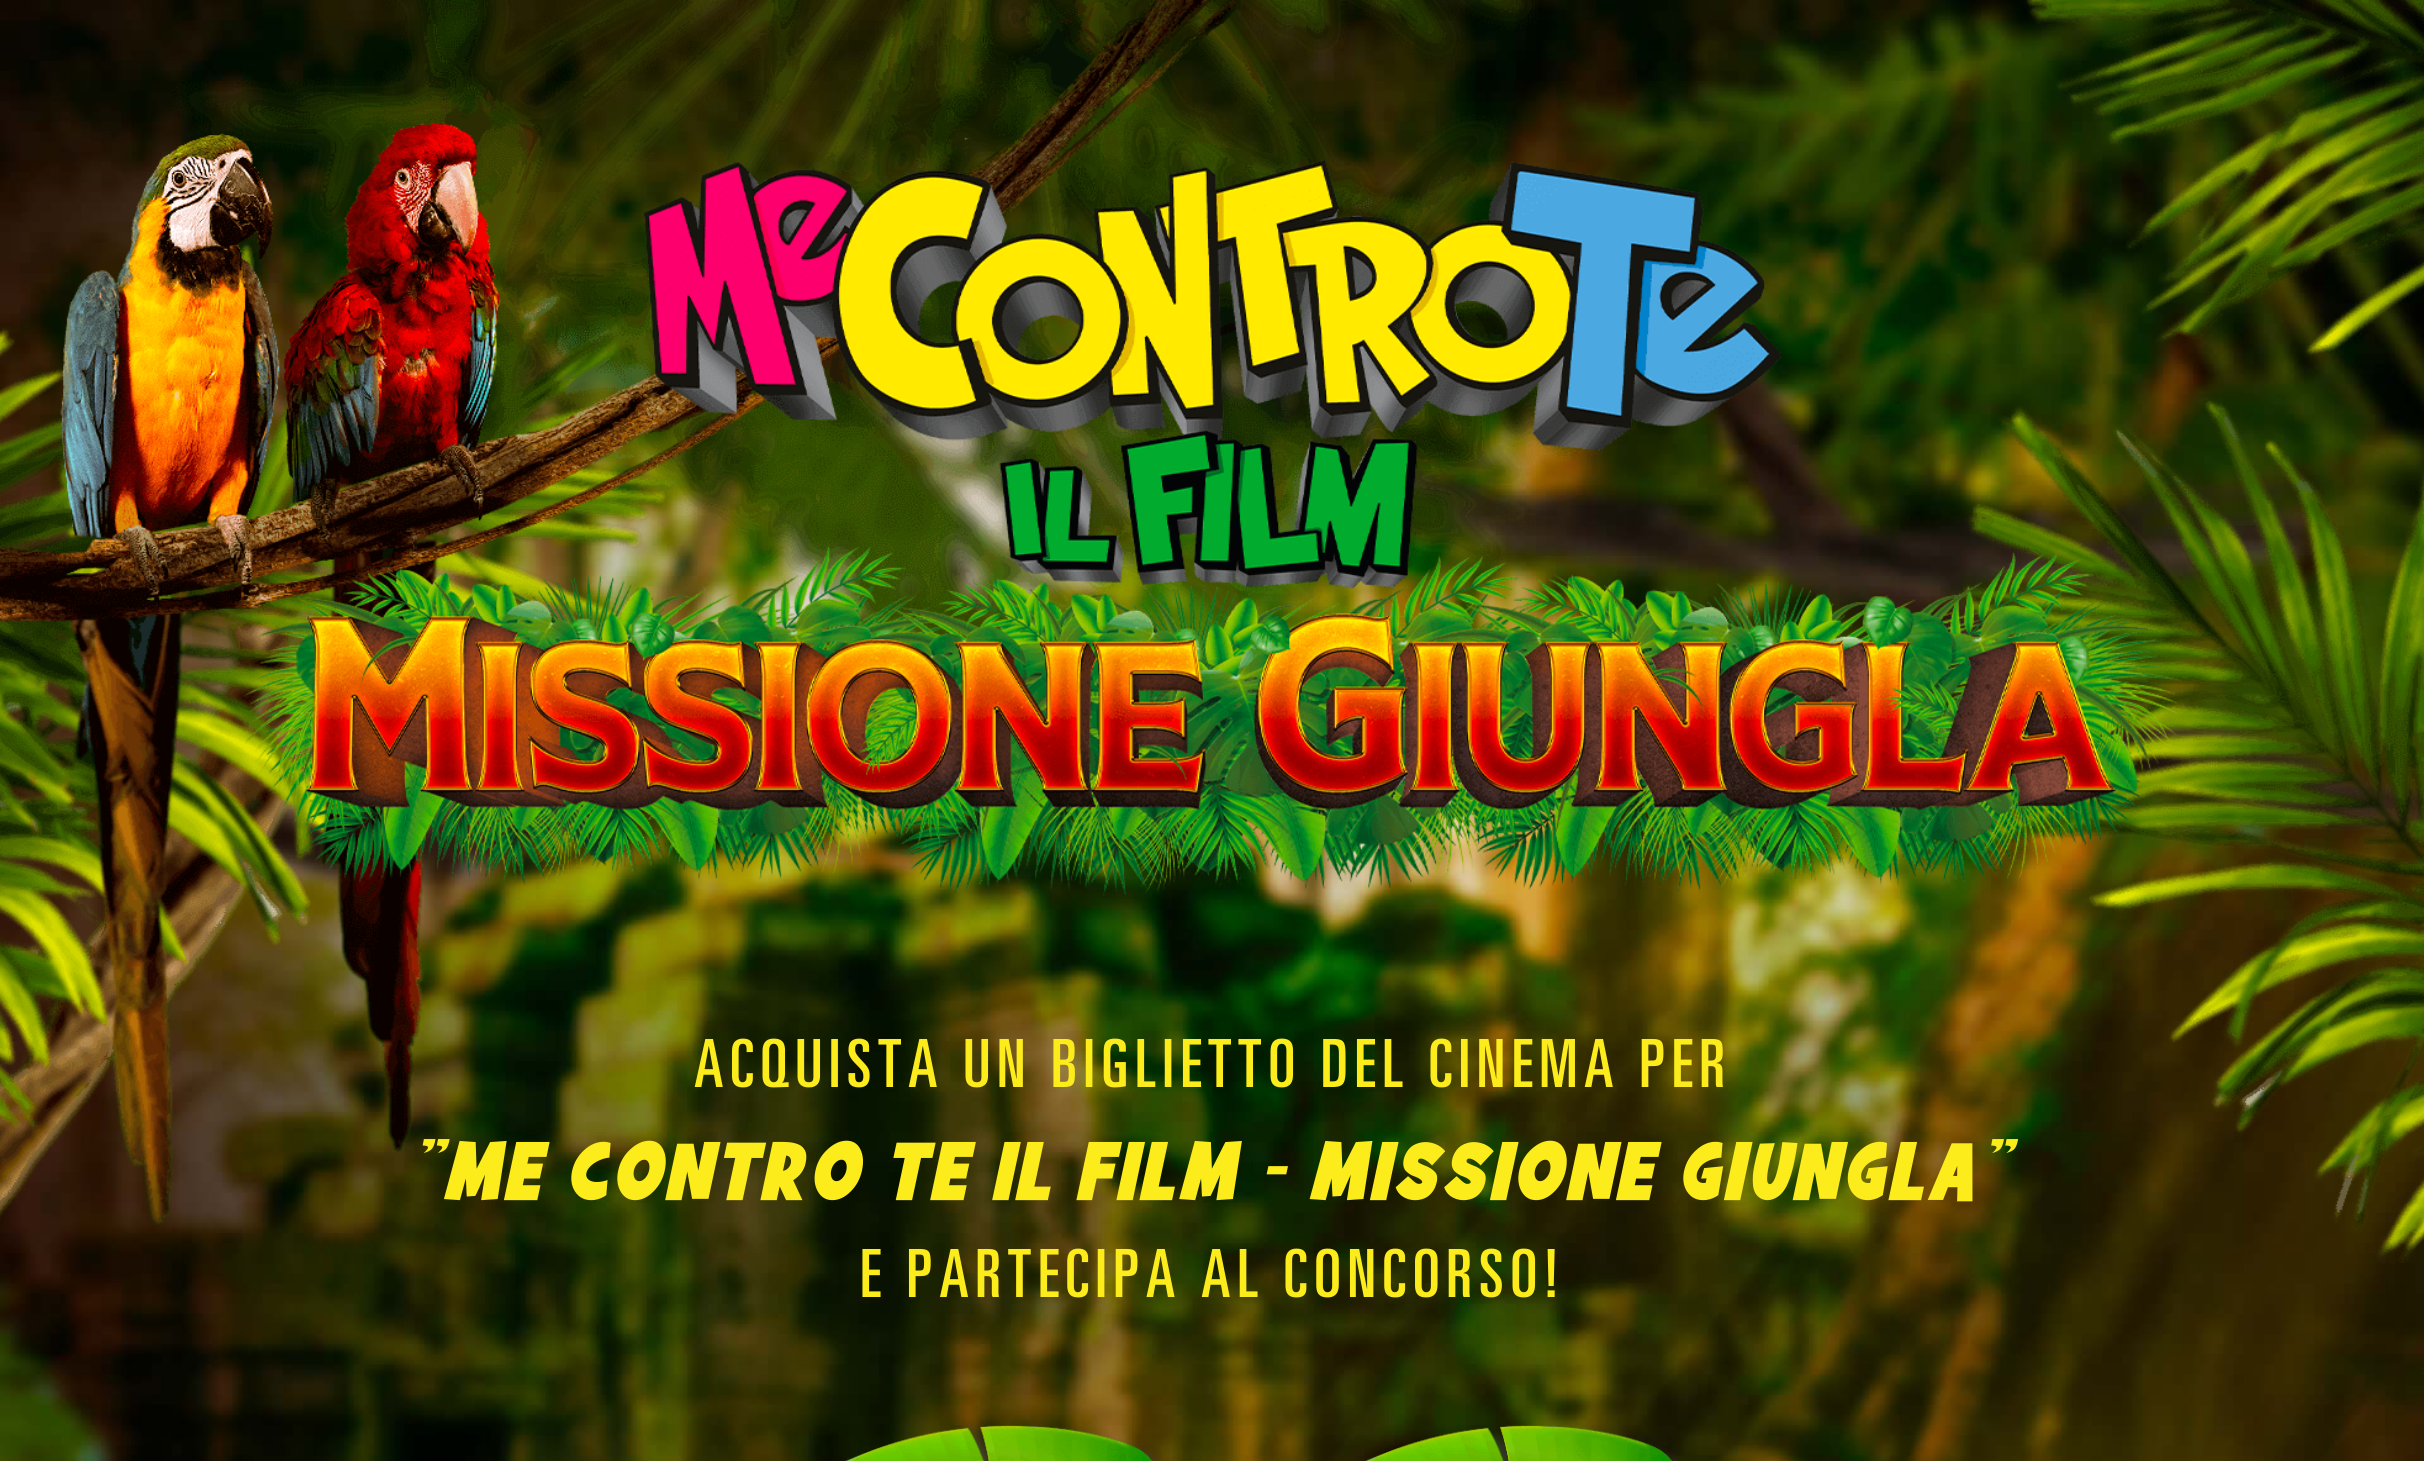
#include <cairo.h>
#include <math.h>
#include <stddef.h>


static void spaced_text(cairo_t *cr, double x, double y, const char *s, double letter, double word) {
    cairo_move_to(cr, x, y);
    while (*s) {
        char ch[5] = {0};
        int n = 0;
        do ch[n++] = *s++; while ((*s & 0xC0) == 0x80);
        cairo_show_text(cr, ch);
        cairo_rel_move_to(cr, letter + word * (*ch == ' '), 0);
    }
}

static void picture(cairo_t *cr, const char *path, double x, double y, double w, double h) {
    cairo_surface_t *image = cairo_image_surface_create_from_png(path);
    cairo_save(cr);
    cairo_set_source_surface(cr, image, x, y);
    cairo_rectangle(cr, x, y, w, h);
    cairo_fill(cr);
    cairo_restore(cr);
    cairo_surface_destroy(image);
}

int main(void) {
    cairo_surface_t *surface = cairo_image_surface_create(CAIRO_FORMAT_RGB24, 2424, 1461);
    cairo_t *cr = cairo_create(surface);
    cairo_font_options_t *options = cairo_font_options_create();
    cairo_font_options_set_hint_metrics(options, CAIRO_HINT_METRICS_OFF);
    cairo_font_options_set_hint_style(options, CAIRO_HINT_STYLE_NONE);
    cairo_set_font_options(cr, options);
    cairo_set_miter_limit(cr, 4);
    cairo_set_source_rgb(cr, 1, 1, 1);
    cairo_paint(cr);
    picture(cr, "img1.png", 0, 0, 2424, 1461);
    picture(cr, "img2.png", 0, 0, 2424, 1374);
    picture(cr, "img3.png", 243, 137, 1939, 759);
    cairo_select_font_face(cr, "Univers", CAIRO_FONT_SLANT_NORMAL, CAIRO_FONT_WEIGHT_NORMAL);
    cairo_set_font_size(cr, 66.5);
    cairo_set_source_rgb(cr, 0.992, 0.922, 0.11);
    spaced_text(cr, 694, 1087, "ACQUISTA UN BIGLIETTO DEL CINEMA PER", 6.65, 0);
    cairo_select_font_face(cr, "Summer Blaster", CAIRO_FONT_SLANT_ITALIC, CAIRO_FONT_WEIGHT_NORMAL);
    spaced_text(cr, 412, 1195, "\"ME CONTRO TE IL FILM - MISSIONE GIUNGLA\"", 6.65, 0);
    cairo_select_font_face(cr, "Univers", CAIRO_FONT_SLANT_NORMAL, CAIRO_FONT_WEIGHT_NORMAL);
    spaced_text(cr, 860, 1297, "E PARTECIPA AL CONCORSO!", 6.65, 0);
    picture(cr, "img4.png", 845, 1425, 317, 36);
    picture(cr, "img5.png", 1364, 1423, 324, 38);
    cairo_surface_write_to_png(surface, "page.png");
    cairo_font_options_destroy(options);
    cairo_destroy(cr);
    cairo_surface_destroy(surface);
    return 0;
}
